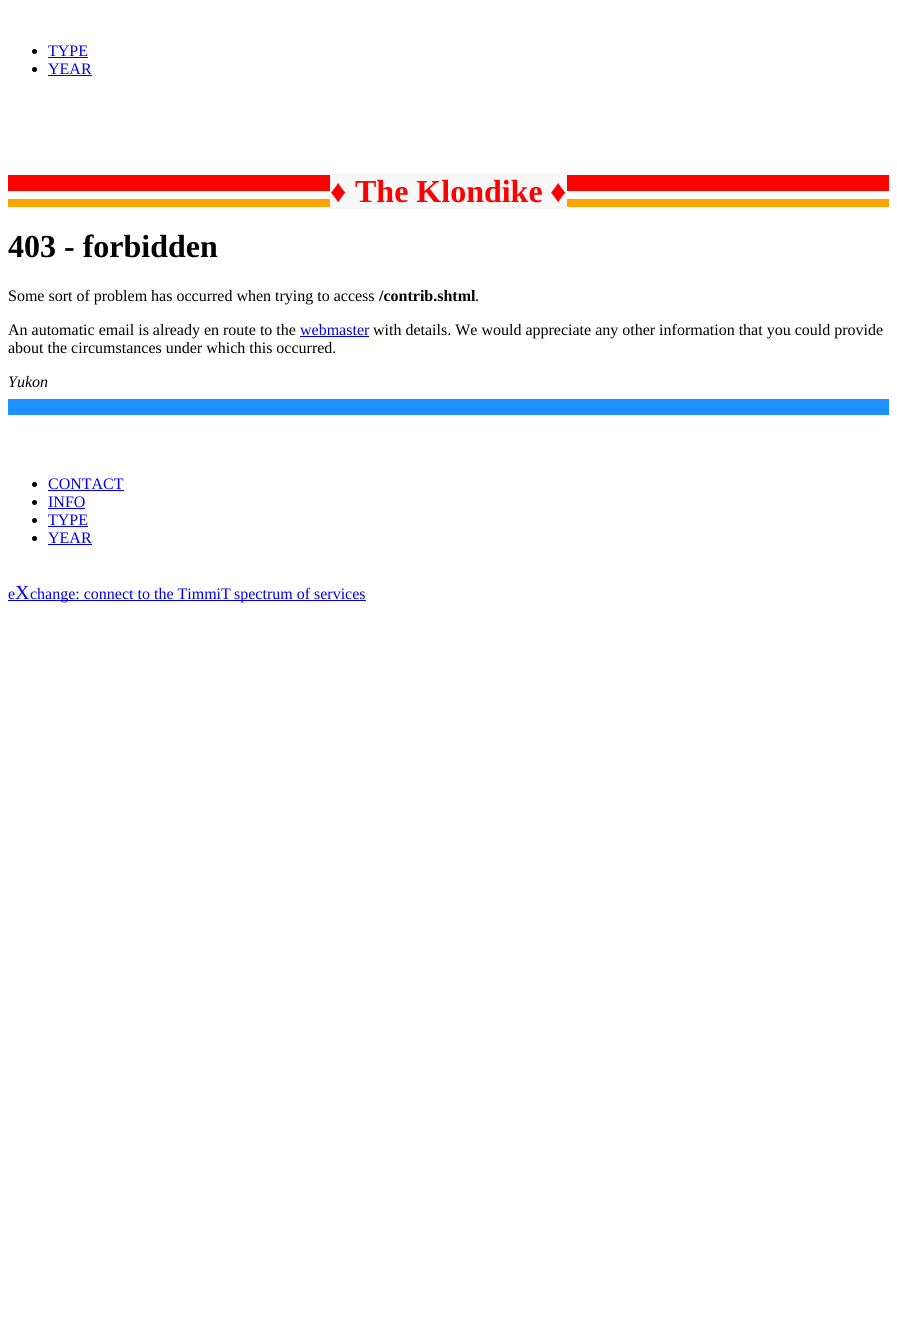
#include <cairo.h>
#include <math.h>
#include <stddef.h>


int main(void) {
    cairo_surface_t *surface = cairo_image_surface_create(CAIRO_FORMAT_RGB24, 897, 1337);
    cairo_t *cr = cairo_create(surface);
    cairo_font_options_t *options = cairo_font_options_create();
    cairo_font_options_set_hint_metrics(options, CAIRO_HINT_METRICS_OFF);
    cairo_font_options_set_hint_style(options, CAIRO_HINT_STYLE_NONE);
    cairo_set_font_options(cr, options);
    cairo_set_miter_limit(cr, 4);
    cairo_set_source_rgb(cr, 1, 1, 1);
    cairo_paint(cr);
    cairo_set_source_rgb(cr, 0, 0, 0);
    cairo_arc(cr, 34.5, 51.5, 2.5, 0, 2 * M_PI);
    cairo_fill(cr);
    cairo_select_font_face(cr, "Liberation Serif", CAIRO_FONT_SLANT_NORMAL, CAIRO_FONT_WEIGHT_NORMAL);
    cairo_set_font_size(cr, 16);
    cairo_set_source_rgb(cr, 0, 0, 0.933);
    cairo_move_to(cr, 48, 56);
    cairo_show_text(cr, "TYPE");
    cairo_rectangle(cr, 48, 57, 40, 1);
    cairo_fill(cr);
    cairo_set_source_rgb(cr, 0, 0, 0);
    cairo_arc(cr, 34.5, 69.5, 2.5, 0, 2 * M_PI);
    cairo_fill(cr);
    cairo_set_source_rgb(cr, 0, 0, 0.933);
    cairo_move_to(cr, 48, 74);
    cairo_show_text(cr, "YEAR");
    cairo_rectangle(cr, 48, 75, 44, 1);
    cairo_fill(cr);
    cairo_set_source_rgb(cr, 1, 0, 0);
    cairo_rectangle(cr, 8, 175, 881, 16);
    cairo_fill(cr);
    cairo_set_source_rgb(cr, 1, 0.647, 0);
    cairo_rectangle(cr, 8, 199, 881, 8);
    cairo_fill(cr);
    cairo_set_source_rgb(cr, 0.969, 0.969, 0.969);
    cairo_rectangle(cr, 330, 173, 237, 36);
    cairo_fill(cr);
    cairo_set_font_size(cr, 32);
    cairo_set_source_rgb(cr, 1, 0, 0);
    cairo_move_to(cr, 330, 202);
    cairo_show_text(cr, "♦");
    cairo_select_font_face(cr, "Liberation Serif", CAIRO_FONT_SLANT_NORMAL, CAIRO_FONT_WEIGHT_BOLD);
    cairo_move_to(cr, 355, 202);
    cairo_show_text(cr, "The Klondike");
    cairo_select_font_face(cr, "Liberation Serif", CAIRO_FONT_SLANT_NORMAL, CAIRO_FONT_WEIGHT_NORMAL);
    cairo_move_to(cr, 550, 202);
    cairo_show_text(cr, "♦");
    cairo_select_font_face(cr, "Liberation Serif", CAIRO_FONT_SLANT_NORMAL, CAIRO_FONT_WEIGHT_BOLD);
    cairo_set_source_rgb(cr, 0, 0, 0);
    cairo_move_to(cr, 8, 257);
    cairo_show_text(cr, "403 - forbidden");
    cairo_select_font_face(cr, "Liberation Serif", CAIRO_FONT_SLANT_NORMAL, CAIRO_FONT_WEIGHT_NORMAL);
    cairo_set_font_size(cr, 16);
    cairo_move_to(cr, 8, 301);
    cairo_show_text(cr, "Some sort of problem has occurred when trying to access");
    cairo_select_font_face(cr, "Liberation Serif", CAIRO_FONT_SLANT_NORMAL, CAIRO_FONT_WEIGHT_BOLD);
    cairo_move_to(cr, 379, 301);
    cairo_show_text(cr, "/contrib.shtml");
    cairo_select_font_face(cr, "Liberation Serif", CAIRO_FONT_SLANT_NORMAL, CAIRO_FONT_WEIGHT_NORMAL);
    cairo_move_to(cr, 475, 301);
    cairo_show_text(cr, ".");
    cairo_move_to(cr, 8, 335);
    cairo_show_text(cr, "An automatic email is already en route to the");
    cairo_set_source_rgb(cr, 0, 0, 0.933);
    cairo_move_to(cr, 300, 335);
    cairo_show_text(cr, "webmaster");
    cairo_rectangle(cr, 300, 336, 69, 1);
    cairo_fill(cr);
    cairo_set_source_rgb(cr, 0, 0, 0);
    cairo_move_to(cr, 373, 335);
    cairo_show_text(cr, "with details. We would appreciate any other information that you could provide");
    cairo_move_to(cr, 8, 353);
    cairo_show_text(cr, "about the circumstances under which this occurred.");
    cairo_select_font_face(cr, "Liberation Serif", CAIRO_FONT_SLANT_ITALIC, CAIRO_FONT_WEIGHT_NORMAL);
    cairo_move_to(cr, 8, 387);
    cairo_show_text(cr, "Yukon");
    cairo_set_source_rgb(cr, 0.118, 0.565, 1);
    cairo_rectangle(cr, 8, 399, 881, 16);
    cairo_fill(cr);
    cairo_set_source_rgb(cr, 0, 0, 0);
    cairo_arc(cr, 34.5, 484.5, 2.5, 0, 2 * M_PI);
    cairo_fill(cr);
    cairo_select_font_face(cr, "Liberation Serif", CAIRO_FONT_SLANT_NORMAL, CAIRO_FONT_WEIGHT_NORMAL);
    cairo_set_source_rgb(cr, 0, 0, 0.933);
    cairo_move_to(cr, 48, 489);
    cairo_show_text(cr, "CONTACT");
    cairo_rectangle(cr, 48, 490, 76, 1);
    cairo_fill(cr);
    cairo_set_source_rgb(cr, 0, 0, 0);
    cairo_arc(cr, 34.5, 502.5, 2.5, 0, 2 * M_PI);
    cairo_fill(cr);
    cairo_set_source_rgb(cr, 0, 0, 0.933);
    cairo_move_to(cr, 48, 507);
    cairo_show_text(cr, "INFO");
    cairo_rectangle(cr, 48, 508, 37, 1);
    cairo_fill(cr);
    cairo_set_source_rgb(cr, 0, 0, 0);
    cairo_arc(cr, 34.5, 520.5, 2.5, 0, 2 * M_PI);
    cairo_fill(cr);
    cairo_set_source_rgb(cr, 0, 0, 0.933);
    cairo_move_to(cr, 48, 525);
    cairo_show_text(cr, "TYPE");
    cairo_rectangle(cr, 48, 526, 40, 1);
    cairo_fill(cr);
    cairo_set_source_rgb(cr, 0, 0, 0);
    cairo_arc(cr, 34.5, 538.5, 2.5, 0, 2 * M_PI);
    cairo_fill(cr);
    cairo_set_source_rgb(cr, 0, 0, 0.933);
    cairo_move_to(cr, 48, 543);
    cairo_show_text(cr, "YEAR");
    cairo_rectangle(cr, 48, 544, 44, 1);
    cairo_fill(cr);
    cairo_move_to(cr, 8, 599);
    cairo_show_text(cr, "e");
    cairo_rectangle(cr, 8, 600, 222, 1);
    cairo_fill(cr);
    cairo_set_font_size(cr, 20);
    cairo_move_to(cr, 15, 599);
    cairo_show_text(cr, "X");
    cairo_set_font_size(cr, 16);
    cairo_move_to(cr, 30, 599);
    cairo_show_text(cr, "change: connect to the TimmiT");
    cairo_rectangle(cr, 230, 600, 136, 1);
    cairo_fill(cr);
    cairo_move_to(cr, 234, 599);
    cairo_show_text(cr, "spectrum of services");
    cairo_surface_write_to_png(surface, "page.png");
    cairo_font_options_destroy(options);
    cairo_destroy(cr);
    cairo_surface_destroy(surface);
    return 0;
}
